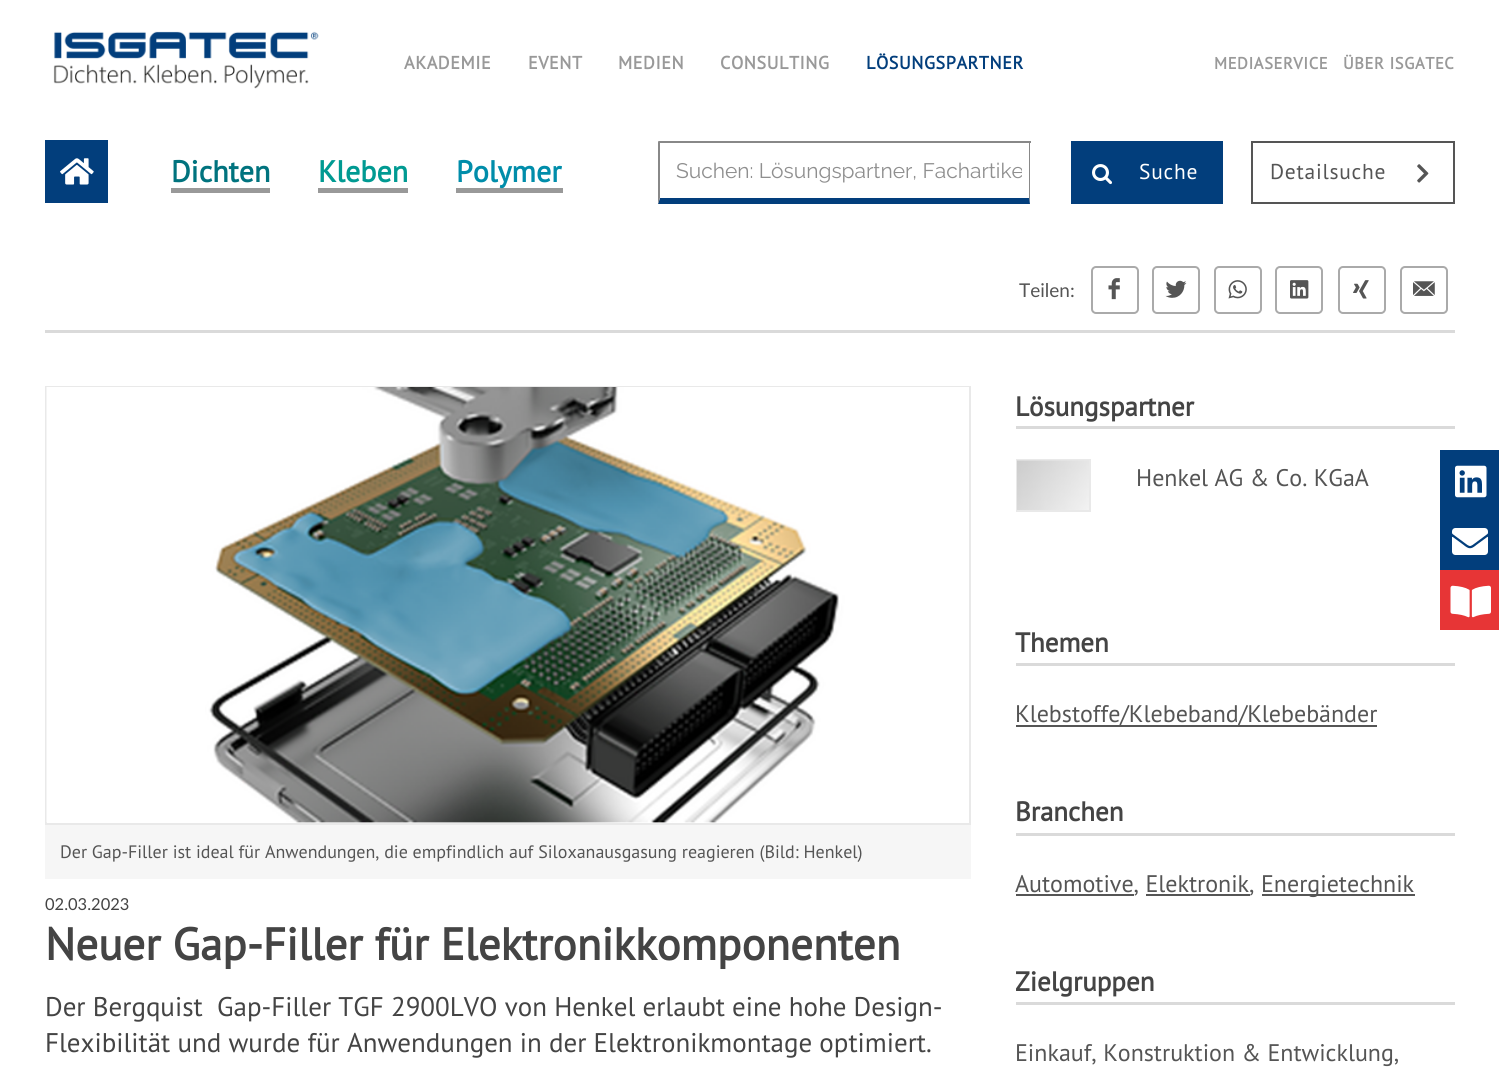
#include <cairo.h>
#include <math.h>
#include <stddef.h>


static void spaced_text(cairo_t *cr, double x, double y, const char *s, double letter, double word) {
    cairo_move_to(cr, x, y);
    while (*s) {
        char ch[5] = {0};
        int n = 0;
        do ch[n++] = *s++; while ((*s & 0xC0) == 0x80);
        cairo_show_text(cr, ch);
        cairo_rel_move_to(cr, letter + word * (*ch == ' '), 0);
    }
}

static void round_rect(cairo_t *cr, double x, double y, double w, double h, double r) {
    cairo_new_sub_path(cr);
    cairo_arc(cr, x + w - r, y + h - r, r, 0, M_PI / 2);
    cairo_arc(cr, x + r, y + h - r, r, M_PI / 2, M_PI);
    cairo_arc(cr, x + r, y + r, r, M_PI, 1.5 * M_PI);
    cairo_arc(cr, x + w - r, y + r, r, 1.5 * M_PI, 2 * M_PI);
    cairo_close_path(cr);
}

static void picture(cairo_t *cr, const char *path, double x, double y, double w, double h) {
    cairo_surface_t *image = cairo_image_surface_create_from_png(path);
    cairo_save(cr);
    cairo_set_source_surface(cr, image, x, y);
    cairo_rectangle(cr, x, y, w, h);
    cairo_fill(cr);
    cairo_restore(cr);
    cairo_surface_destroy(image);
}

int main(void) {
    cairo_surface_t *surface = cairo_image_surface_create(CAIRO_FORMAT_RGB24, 1499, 1079);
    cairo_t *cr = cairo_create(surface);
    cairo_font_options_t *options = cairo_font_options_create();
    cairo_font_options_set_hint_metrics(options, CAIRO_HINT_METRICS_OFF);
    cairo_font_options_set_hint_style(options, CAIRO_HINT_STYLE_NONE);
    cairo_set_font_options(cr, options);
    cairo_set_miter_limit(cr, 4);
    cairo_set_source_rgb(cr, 1, 1, 1);
    cairo_paint(cr);
    picture(cr, "img1.png", 53, 31, 266, 58);
    cairo_select_font_face(cr, "PT Sans", CAIRO_FONT_SLANT_NORMAL, CAIRO_FONT_WEIGHT_BOLD);
    cairo_set_font_size(cr, 18);
    cairo_set_source_rgb(cr, 0.6, 0.6, 0.6);
    spaced_text(cr, 404, 69, "AKADEMIE", 0.6, 0);
    spaced_text(cr, 528, 69, "EVENT", 0.6, 0);
    spaced_text(cr, 618, 69, "MEDIEN", 0.6, 0);
    spaced_text(cr, 720, 69, "CONSULTING", 0.6, 0);
    cairo_set_source_rgb(cr, 0.008, 0.243, 0.486);
    spaced_text(cr, 866, 69, "LÖSUNGSPARTNER", 0.6, 0);
    cairo_set_font_size(cr, 16.5);
    cairo_set_source_rgb(cr, 0.6, 0.6, 0.6);
    spaced_text(cr, 1214, 69, "MEDIASERVICE", 0.6, 0);
    spaced_text(cr, 1343, 69, "ÜBER ISGATEC", 0.6, 0);
    cairo_set_source_rgb(cr, 0.008, 0.243, 0.486);
    cairo_rectangle(cr, 45, 140, 63, 63);
    cairo_fill(cr);
    picture(cr, "img2.png", 60, 158, 34, 27);
    cairo_set_source_rgb(cr, 0.6, 0.6, 0.6);
    cairo_rectangle(cr, 171, 188, 99, 5);
    cairo_fill(cr);
    cairo_set_font_size(cr, 30);
    cairo_set_source_rgb(cr, 0, 0.451, 0.494);
    cairo_move_to(cr, 171, 182);
    cairo_show_text(cr, "Dichten");
    cairo_set_source_rgb(cr, 0.6, 0.6, 0.6);
    cairo_rectangle(cr, 318, 188, 90, 5);
    cairo_fill(cr);
    cairo_set_source_rgb(cr, 0, 0.604, 0.573);
    cairo_move_to(cr, 318, 182);
    cairo_show_text(cr, "Kleben");
    cairo_set_source_rgb(cr, 0.6, 0.6, 0.6);
    cairo_rectangle(cr, 456, 188, 107, 5);
    cairo_fill(cr);
    cairo_set_source_rgb(cr, 0, 0.553, 0.667);
    cairo_move_to(cr, 456, 182);
    cairo_show_text(cr, "Polymer");
    cairo_set_source_rgb(cr, 0.533, 0.533, 0.533);
    cairo_rectangle(cr, 659, 141, 372, 2);
    cairo_fill(cr);
    cairo_new_path(cr);
    cairo_move_to(cr, 1030, 141);
    cairo_line_to(cr, 1030, 204);
    cairo_line_to(cr, 1029, 198);
    cairo_line_to(cr, 1029, 142);
    cairo_close_path(cr);
    cairo_fill(cr);
    cairo_set_source_rgb(cr, 0.008, 0.243, 0.486);
    cairo_new_path(cr);
    cairo_move_to(cr, 1030, 204);
    cairo_line_to(cr, 658, 204);
    cairo_line_to(cr, 660, 198);
    cairo_line_to(cr, 1029, 198);
    cairo_close_path(cr);
    cairo_fill(cr);
    cairo_set_source_rgb(cr, 0.533, 0.533, 0.533);
    cairo_new_path(cr);
    cairo_move_to(cr, 658, 204);
    cairo_line_to(cr, 658, 141);
    cairo_line_to(cr, 660, 142);
    cairo_line_to(cr, 660, 198);
    cairo_close_path(cr);
    cairo_fill(cr);
    cairo_save(cr);
    cairo_rectangle(cr, 668, 159, 354, 24);
    cairo_clip(cr);
    cairo_select_font_face(cr, "Raleway", CAIRO_FONT_SLANT_NORMAL, CAIRO_FONT_WEIGHT_NORMAL);
    cairo_set_font_size(cr, 21);
    cairo_set_source_rgb(cr, 0.561, 0.561, 0.561);
    cairo_move_to(cr, 676, 178);
    cairo_show_text(cr, "Suchen: Lösungspartner, Fachartike");
    cairo_restore(cr);
    cairo_set_source_rgb(cr, 0.008, 0.243, 0.486);
    cairo_rectangle(cr, 1071, 141, 152, 63);
    cairo_fill(cr);
    picture(cr, "img3.png", 1092, 164, 20, 21);
    cairo_select_font_face(cr, "PT Sans", CAIRO_FONT_SLANT_NORMAL, CAIRO_FONT_WEIGHT_NORMAL);
    cairo_set_font_size(cr, 21.5);
    cairo_set_source_rgb(cr, 1, 1, 1);
    spaced_text(cr, 1139, 179, "Suche", 0.75, 0);
    cairo_rectangle(cr, 1252, 142, 202, 61);
    cairo_set_source_rgb(cr, 0.333, 0.333, 0.333);
    cairo_stroke(cr);
    spaced_text(cr, 1270, 179, "Detailsuche", 0.75, 0);
    picture(cr, "img4.png", 1417, 164, 12, 19);
    cairo_set_source_rgb(cr, 0.855, 0.855, 0.855);
    cairo_rectangle(cr, 45, 330, 1410, 3);
    cairo_fill(cr);
    cairo_select_font_face(cr, "Lato", CAIRO_FONT_SLANT_NORMAL, CAIRO_FONT_WEIGHT_NORMAL);
    cairo_set_font_size(cr, 19);
    cairo_set_source_rgb(cr, 0.333, 0.333, 0.333);
    cairo_move_to(cr, 1019, 297);
    cairo_show_text(cr, "Teilen:");
    round_rect(cr, 1092, 267, 46, 46, 4);
    cairo_set_source_rgb(cr, 0.667, 0.667, 0.667);
    cairo_stroke(cr);
    picture(cr, "img5.png", 1108, 278, 12, 22);
    round_rect(cr, 1153, 267, 46, 46, 4);
    cairo_stroke(cr);
    picture(cr, "img6.png", 1165, 280, 22, 18);
    round_rect(cr, 1215, 267, 46, 46, 4);
    cairo_stroke(cr);
    picture(cr, "img7.png", 1228, 280, 19, 19);
    round_rect(cr, 1276, 267, 46, 46, 4);
    cairo_stroke(cr);
    picture(cr, "img8.png", 1290, 280, 19, 19);
    round_rect(cr, 1339, 267, 46, 46, 4);
    cairo_stroke(cr);
    picture(cr, "img9.png", 1353, 280, 16, 19);
    round_rect(cr, 1401, 267, 46, 46, 4);
    cairo_stroke(cr);
    picture(cr, "img10.png", 1413, 281, 22, 15);
    cairo_rectangle(cr, 46, 387, 924, 437);
    cairo_set_source_rgb(cr, 0.914, 0.914, 0.914);
    cairo_stroke(cr);
    picture(cr, "img11.png", 46, 387, 923, 436);
    cairo_set_source_rgb(cr, 0.961, 0.961, 0.961);
    cairo_rectangle(cr, 45, 825, 926, 54);
    cairo_fill(cr);
    cairo_select_font_face(cr, "PT Sans", CAIRO_FONT_SLANT_NORMAL, CAIRO_FONT_WEIGHT_NORMAL);
    cairo_set_font_size(cr, 18);
    cairo_set_source_rgb(cr, 0.333, 0.333, 0.333);
    cairo_move_to(cr, 60, 858);
    cairo_show_text(cr, "Der Gap-Filler ist ideal für Anwendungen, die empfindlich auf Siloxanausgasung reagieren (Bild: Henkel)");
    cairo_select_font_face(cr, "Lato", CAIRO_FONT_SLANT_NORMAL, CAIRO_FONT_WEIGHT_NORMAL);
    cairo_set_font_size(cr, 16.5);
    cairo_set_source_rgb(cr, 0.267, 0.267, 0.267);
    cairo_move_to(cr, 45, 910);
    cairo_show_text(cr, "02.03.2023");
    cairo_select_font_face(cr, "PT Sans", CAIRO_FONT_SLANT_NORMAL, CAIRO_FONT_WEIGHT_BOLD);
    cairo_set_font_size(cr, 45);
    cairo_move_to(cr, 45, 960);
    cairo_show_text(cr, "Neuer Gap-Filler für Elektronikkomponenten");
    cairo_select_font_face(cr, "PT Sans", CAIRO_FONT_SLANT_NORMAL, CAIRO_FONT_WEIGHT_NORMAL);
    cairo_set_font_size(cr, 27);
    cairo_move_to(cr, 45, 1016);
    cairo_show_text(cr, "Der Bergquist  Gap-Filler TGF 2900LVO von Henkel erlaubt eine hohe Design-");
    cairo_move_to(cr, 45, 1052);
    cairo_show_text(cr, "Flexibilität und wurde für Anwendungen in der Elektronikmontage optimiert.");
    cairo_set_source_rgb(cr, 0.855, 0.855, 0.855);
    cairo_rectangle(cr, 1016, 426, 439, 3);
    cairo_fill(cr);
    cairo_select_font_face(cr, "PT Sans", CAIRO_FONT_SLANT_NORMAL, CAIRO_FONT_WEIGHT_BOLD);
    cairo_set_source_rgb(cr, 0.267, 0.267, 0.267);
    cairo_move_to(cr, 1015, 416);
    cairo_show_text(cr, "Lösungspartner");
    cairo_rectangle(cr, 1017, 460, 73, 51);
    cairo_set_source_rgb(cr, 0.914, 0.914, 0.914);
    cairo_stroke(cr);
    picture(cr, "img12.png", 1017, 460, 72, 50);
    cairo_select_font_face(cr, "PT Sans", CAIRO_FONT_SLANT_NORMAL, CAIRO_FONT_WEIGHT_NORMAL);
    cairo_set_font_size(cr, 24);
    cairo_set_source_rgb(cr, 0.333, 0.333, 0.333);
    cairo_move_to(cr, 1136, 486);
    cairo_show_text(cr, "Henkel AG & Co. KGaA");
    cairo_set_source_rgb(cr, 0.855, 0.855, 0.855);
    cairo_rectangle(cr, 1016, 663, 439, 3);
    cairo_fill(cr);
    cairo_select_font_face(cr, "PT Sans", CAIRO_FONT_SLANT_NORMAL, CAIRO_FONT_WEIGHT_BOLD);
    cairo_set_font_size(cr, 27);
    cairo_set_source_rgb(cr, 0.267, 0.267, 0.267);
    cairo_move_to(cr, 1015, 652);
    cairo_show_text(cr, "Themen");
    cairo_set_source_rgb(cr, 0.333, 0.333, 0.333);
    cairo_rectangle(cr, 1016, 725, 361, 2);
    cairo_fill(cr);
    cairo_select_font_face(cr, "PT Sans", CAIRO_FONT_SLANT_NORMAL, CAIRO_FONT_WEIGHT_NORMAL);
    cairo_set_font_size(cr, 24);
    cairo_move_to(cr, 1015, 722);
    cairo_show_text(cr, "Klebstoffe/Klebeband/Klebebänder");
    cairo_set_source_rgb(cr, 0.855, 0.855, 0.855);
    cairo_rectangle(cr, 1016, 833, 439, 3);
    cairo_fill(cr);
    cairo_select_font_face(cr, "PT Sans", CAIRO_FONT_SLANT_NORMAL, CAIRO_FONT_WEIGHT_BOLD);
    cairo_set_font_size(cr, 27);
    cairo_set_source_rgb(cr, 0.267, 0.267, 0.267);
    cairo_move_to(cr, 1015, 821);
    cairo_show_text(cr, "Branchen");
    cairo_set_source_rgb(cr, 0.333, 0.333, 0.333);
    cairo_rectangle(cr, 1016, 894, 118, 2);
    cairo_fill(cr);
    cairo_select_font_face(cr, "PT Sans", CAIRO_FONT_SLANT_NORMAL, CAIRO_FONT_WEIGHT_NORMAL);
    cairo_set_font_size(cr, 24);
    cairo_move_to(cr, 1015, 892);
    cairo_show_text(cr, "Automotive, Elektronik,");
    cairo_rectangle(cr, 1262, 894, 153, 2);
    cairo_fill(cr);
    cairo_move_to(cr, 1261, 892);
    cairo_show_text(cr, "Energietechnik");
    cairo_rectangle(cr, 1146, 894, 104, 2);
    cairo_fill(cr);
    cairo_set_source_rgb(cr, 0.855, 0.855, 0.855);
    cairo_rectangle(cr, 1016, 1002, 439, 3);
    cairo_fill(cr);
    cairo_select_font_face(cr, "PT Sans", CAIRO_FONT_SLANT_NORMAL, CAIRO_FONT_WEIGHT_BOLD);
    cairo_set_font_size(cr, 27);
    cairo_set_source_rgb(cr, 0.267, 0.267, 0.267);
    cairo_move_to(cr, 1015, 991);
    cairo_show_text(cr, "Zielgruppen");
    cairo_select_font_face(cr, "PT Sans", CAIRO_FONT_SLANT_NORMAL, CAIRO_FONT_WEIGHT_NORMAL);
    cairo_set_font_size(cr, 24);
    cairo_set_source_rgb(cr, 0.333, 0.333, 0.333);
    cairo_move_to(cr, 1015, 1061);
    cairo_show_text(cr, "Einkauf, Konstruktion & Entwicklung,");
    cairo_set_source_rgb(cr, 0.008, 0.243, 0.486);
    cairo_rectangle(cr, 1440, 450, 59, 120);
    cairo_fill(cr);
    picture(cr, "img13.png", 1455, 465, 32, 33);
    picture(cr, "img14.png", 1452, 528, 36, 27);
    cairo_set_source_rgb(cr, 0.906, 0.208, 0.212);
    cairo_rectangle(cr, 1440, 570, 59, 60);
    cairo_fill(cr);
    picture(cr, "img15.png", 1450, 585, 41, 33);
    cairo_surface_write_to_png(surface, "page.png");
    cairo_font_options_destroy(options);
    cairo_destroy(cr);
    cairo_surface_destroy(surface);
    return 0;
}
